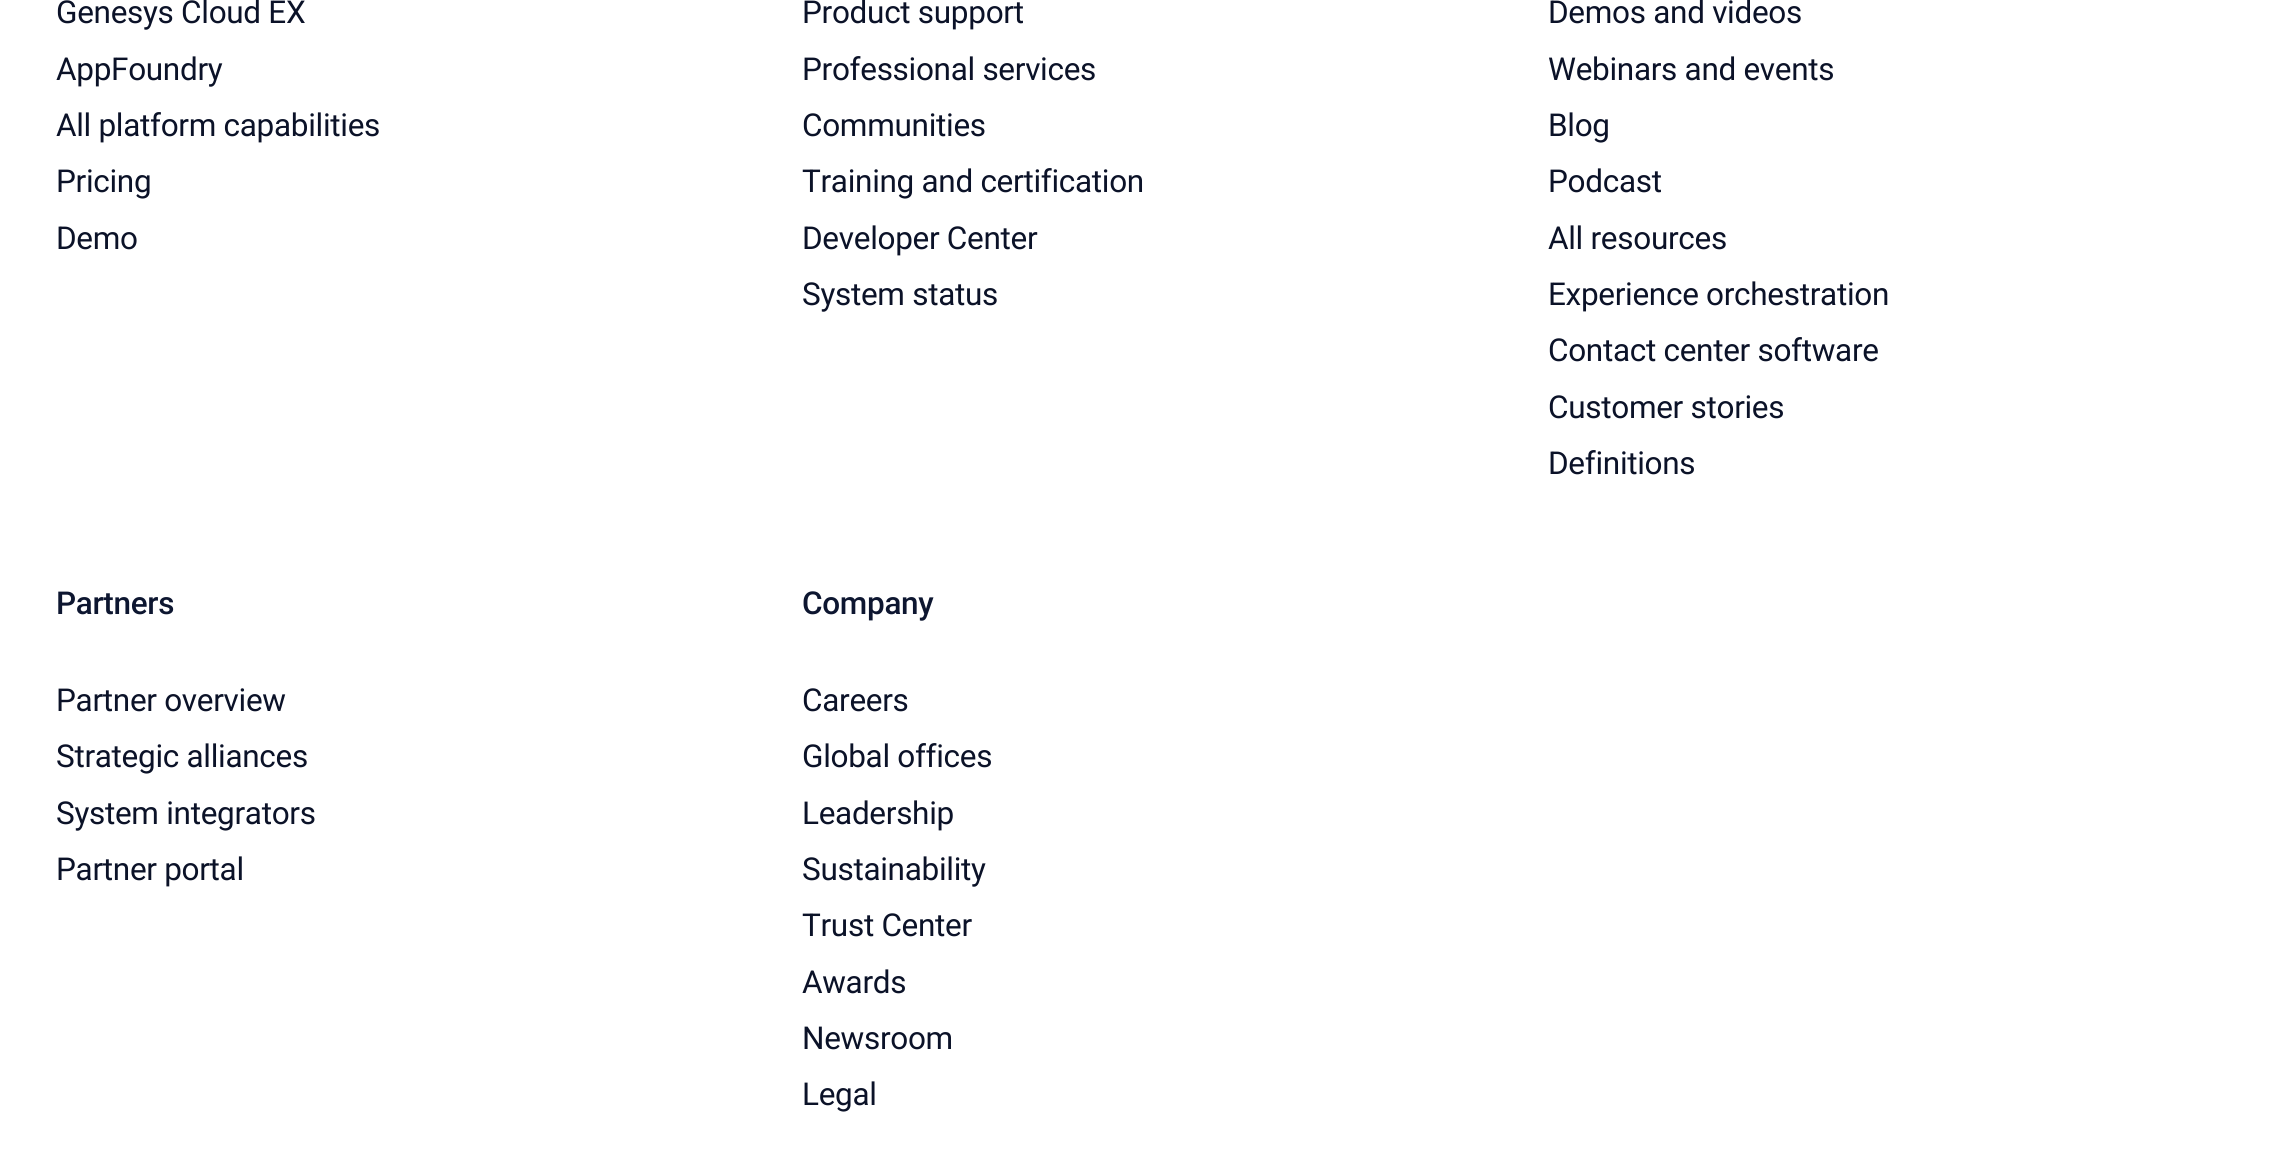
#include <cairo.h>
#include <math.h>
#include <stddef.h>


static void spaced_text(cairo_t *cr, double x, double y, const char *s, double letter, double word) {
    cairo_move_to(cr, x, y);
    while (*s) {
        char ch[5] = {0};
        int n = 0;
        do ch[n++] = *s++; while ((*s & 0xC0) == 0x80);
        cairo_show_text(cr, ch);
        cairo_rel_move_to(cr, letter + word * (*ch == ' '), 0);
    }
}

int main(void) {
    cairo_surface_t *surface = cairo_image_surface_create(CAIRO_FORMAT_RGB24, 2294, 1156);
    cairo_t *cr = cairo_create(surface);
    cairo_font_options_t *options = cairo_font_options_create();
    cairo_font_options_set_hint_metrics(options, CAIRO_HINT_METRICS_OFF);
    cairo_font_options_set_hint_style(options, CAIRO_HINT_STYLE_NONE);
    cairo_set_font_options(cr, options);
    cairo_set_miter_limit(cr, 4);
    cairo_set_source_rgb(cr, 1, 1, 1);
    cairo_paint(cr);
    cairo_select_font_face(cr, "Roboto", CAIRO_FONT_SLANT_NORMAL, CAIRO_FONT_WEIGHT_NORMAL);
    cairo_set_font_size(cr, 31.5);
    cairo_set_source_rgb(cr, 0.043, 0.071, 0.157);
    spaced_text(cr, 56, 23, "Genesys Cloud EX", -0.3, 0);
    spaced_text(cr, 56, 80, "AppFoundry", -0.3, 0);
    spaced_text(cr, 56, 136, "All platform capabilities", -0.3, 0);
    spaced_text(cr, 56, 192, "Pricing", -0.3, 0);
    spaced_text(cr, 56, 249, "Demo", -0.3, 0);
    spaced_text(cr, 802, 23, "Product support", -0.3, 0);
    spaced_text(cr, 802, 80, "Professional services", -0.3, 0);
    spaced_text(cr, 802, 136, "Communities", -0.3, 0);
    spaced_text(cr, 802, 192, "Training and certification", -0.3, 0);
    spaced_text(cr, 802, 249, "Developer Center", -0.3, 0);
    spaced_text(cr, 802, 305, "System status", -0.3, 0);
    spaced_text(cr, 1548, 23, "Demos and videos", -0.3, 0);
    spaced_text(cr, 1548, 80, "Webinars and events", -0.3, 0);
    spaced_text(cr, 1548, 136, "Blog", -0.3, 0);
    spaced_text(cr, 1548, 192, "Podcast", -0.3, 0);
    spaced_text(cr, 1548, 249, "All resources", -0.3, 0);
    spaced_text(cr, 1548, 305, "Experience orchestration", -0.3, 0);
    spaced_text(cr, 1548, 361, "Contact center software", -0.3, 0);
    spaced_text(cr, 1548, 418, "Customer stories", -0.3, 0);
    spaced_text(cr, 1548, 474, "Definitions", -0.3, 0);
    cairo_select_font_face(cr, "Roboto Medium", CAIRO_FONT_SLANT_NORMAL, CAIRO_FONT_WEIGHT_NORMAL);
    cairo_set_source_rgb(cr, 0.051, 0.086, 0.188);
    spaced_text(cr, 56, 614, "Partners", -0.3, 0);
    cairo_select_font_face(cr, "Roboto", CAIRO_FONT_SLANT_NORMAL, CAIRO_FONT_WEIGHT_NORMAL);
    cairo_set_source_rgb(cr, 0.043, 0.071, 0.157);
    spaced_text(cr, 56, 711, "Partner overview", -0.3, 0);
    spaced_text(cr, 56, 767, "Strategic alliances", -0.3, 0);
    spaced_text(cr, 56, 824, "System integrators", -0.3, 0);
    spaced_text(cr, 56, 880, "Partner portal", -0.3, 0);
    cairo_select_font_face(cr, "Roboto Medium", CAIRO_FONT_SLANT_NORMAL, CAIRO_FONT_WEIGHT_NORMAL);
    cairo_set_source_rgb(cr, 0.051, 0.086, 0.188);
    spaced_text(cr, 802, 614, "Company", -0.3, 0);
    cairo_select_font_face(cr, "Roboto", CAIRO_FONT_SLANT_NORMAL, CAIRO_FONT_WEIGHT_NORMAL);
    cairo_set_source_rgb(cr, 0.043, 0.071, 0.157);
    spaced_text(cr, 802, 711, "Careers", -0.3, 0);
    spaced_text(cr, 802, 767, "Global offices", -0.3, 0);
    spaced_text(cr, 802, 824, "Leadership", -0.3, 0);
    spaced_text(cr, 802, 880, "Sustainability", -0.3, 0);
    spaced_text(cr, 802, 936, "Trust Center", -0.3, 0);
    spaced_text(cr, 802, 993, "Awards", -0.3, 0);
    spaced_text(cr, 802, 1049, "Newsroom", -0.3, 0);
    spaced_text(cr, 802, 1105, "Legal", -0.3, 0);
    cairo_surface_write_to_png(surface, "page.png");
    cairo_font_options_destroy(options);
    cairo_destroy(cr);
    cairo_surface_destroy(surface);
    return 0;
}
